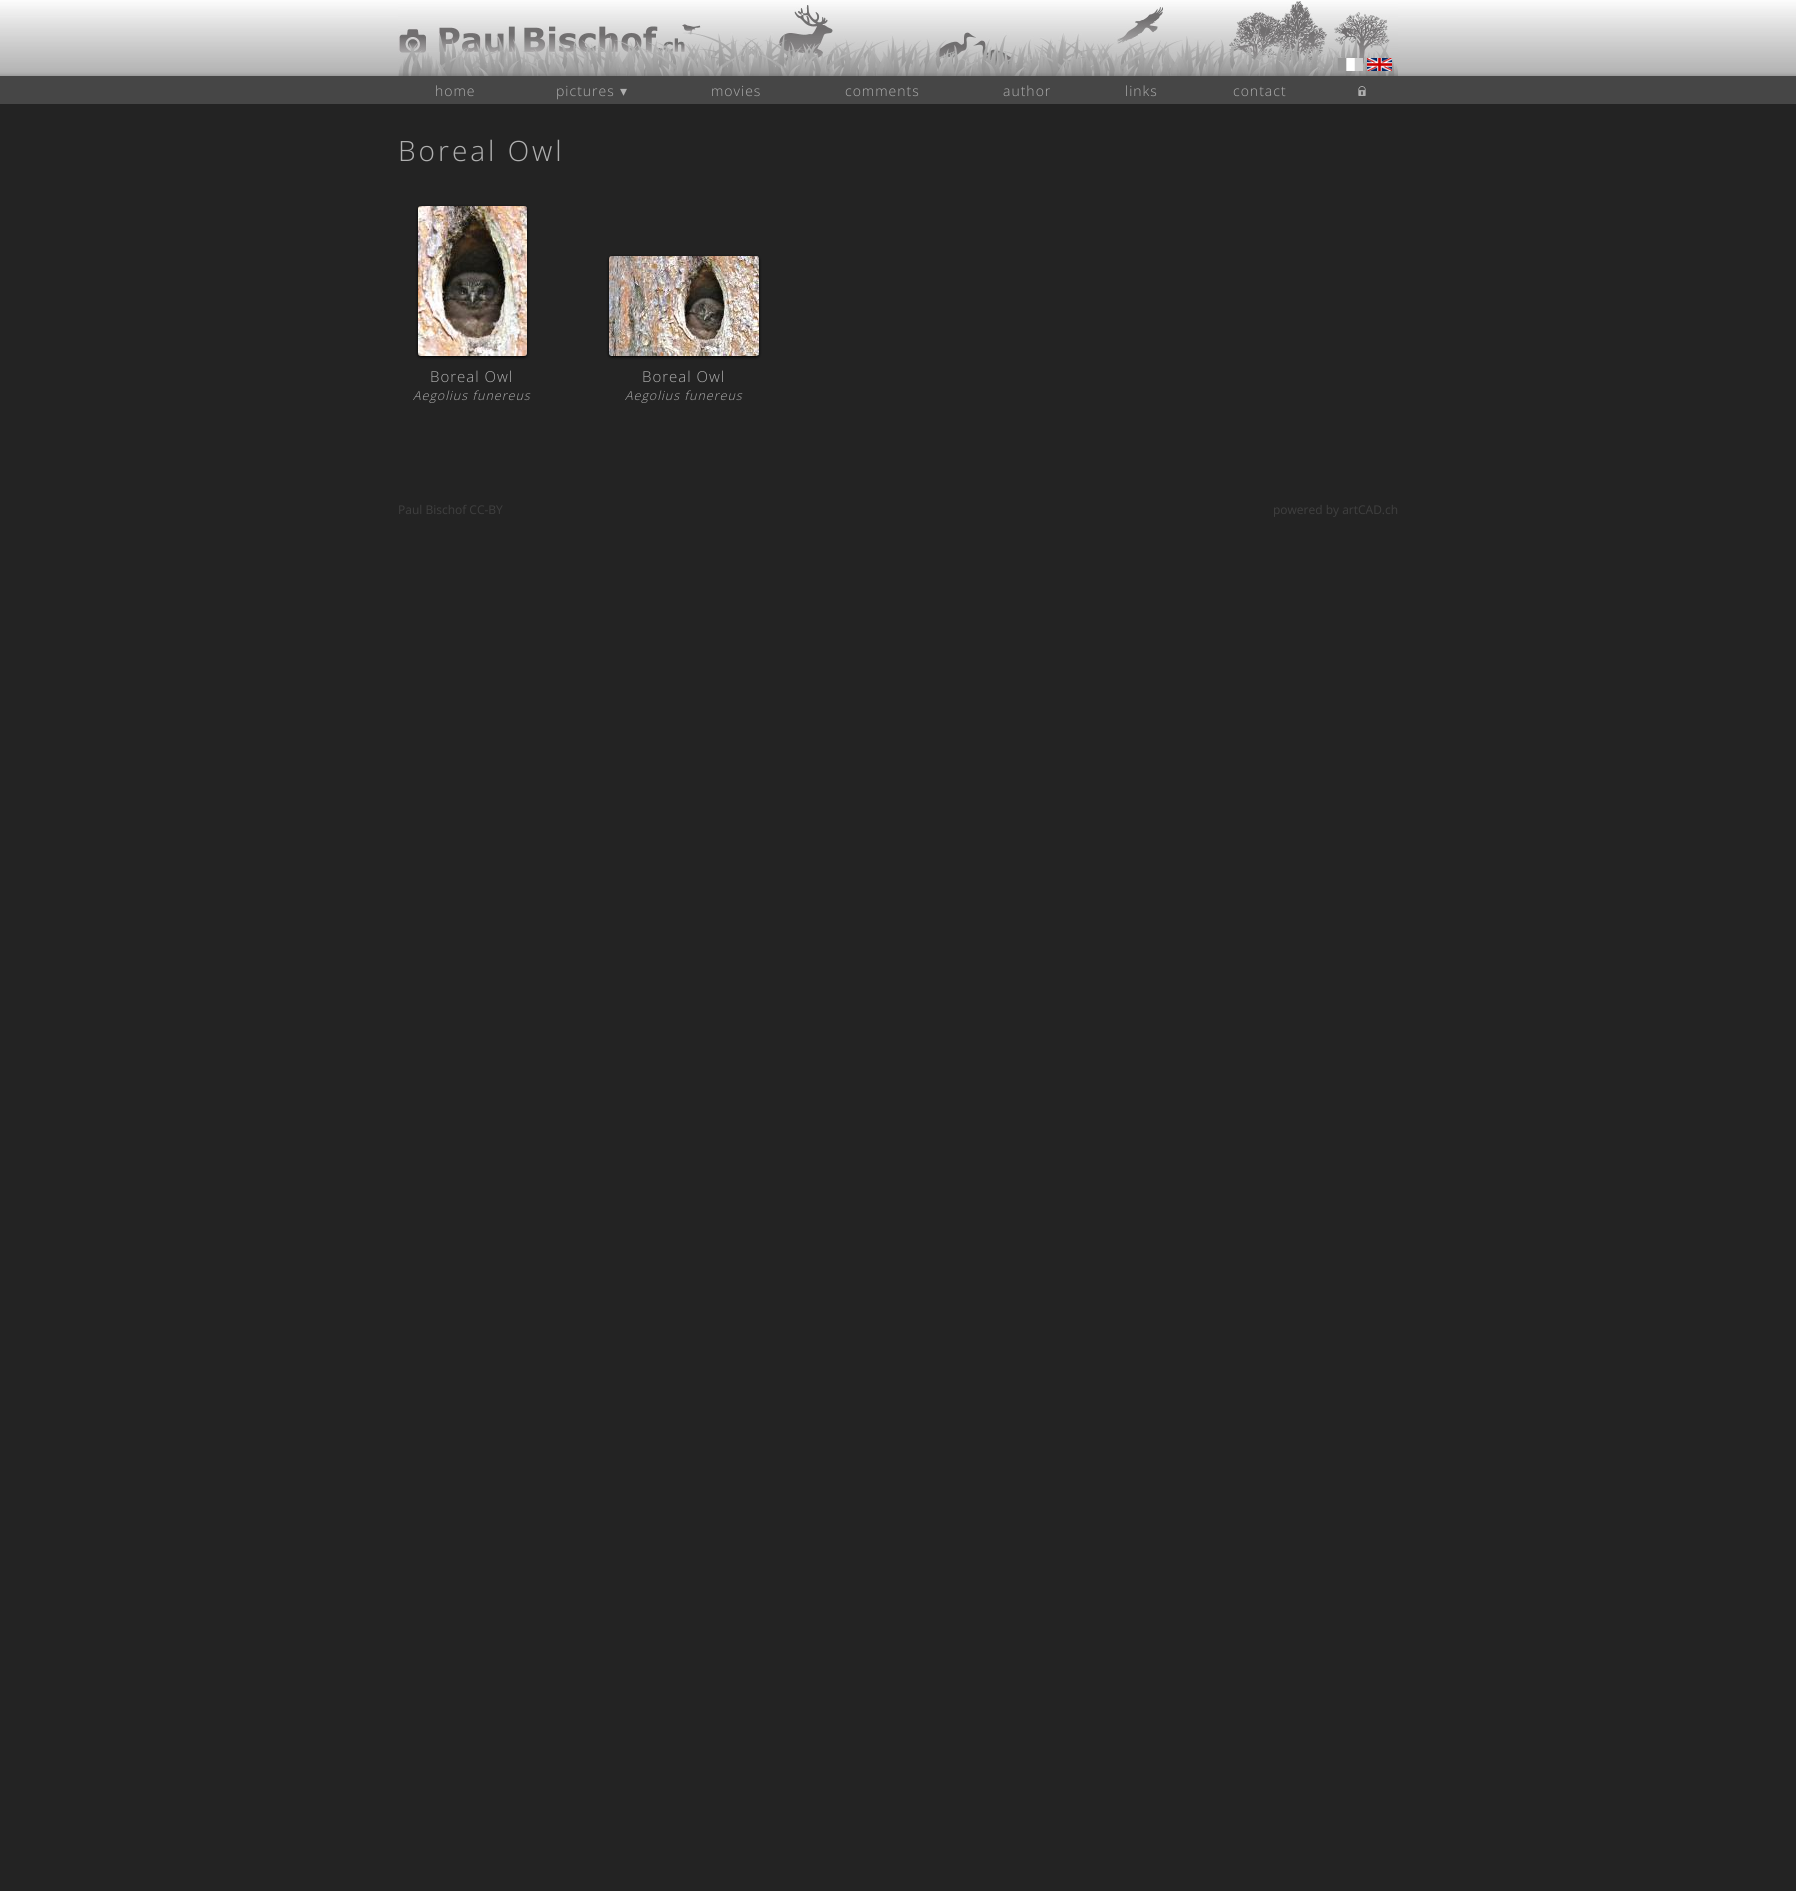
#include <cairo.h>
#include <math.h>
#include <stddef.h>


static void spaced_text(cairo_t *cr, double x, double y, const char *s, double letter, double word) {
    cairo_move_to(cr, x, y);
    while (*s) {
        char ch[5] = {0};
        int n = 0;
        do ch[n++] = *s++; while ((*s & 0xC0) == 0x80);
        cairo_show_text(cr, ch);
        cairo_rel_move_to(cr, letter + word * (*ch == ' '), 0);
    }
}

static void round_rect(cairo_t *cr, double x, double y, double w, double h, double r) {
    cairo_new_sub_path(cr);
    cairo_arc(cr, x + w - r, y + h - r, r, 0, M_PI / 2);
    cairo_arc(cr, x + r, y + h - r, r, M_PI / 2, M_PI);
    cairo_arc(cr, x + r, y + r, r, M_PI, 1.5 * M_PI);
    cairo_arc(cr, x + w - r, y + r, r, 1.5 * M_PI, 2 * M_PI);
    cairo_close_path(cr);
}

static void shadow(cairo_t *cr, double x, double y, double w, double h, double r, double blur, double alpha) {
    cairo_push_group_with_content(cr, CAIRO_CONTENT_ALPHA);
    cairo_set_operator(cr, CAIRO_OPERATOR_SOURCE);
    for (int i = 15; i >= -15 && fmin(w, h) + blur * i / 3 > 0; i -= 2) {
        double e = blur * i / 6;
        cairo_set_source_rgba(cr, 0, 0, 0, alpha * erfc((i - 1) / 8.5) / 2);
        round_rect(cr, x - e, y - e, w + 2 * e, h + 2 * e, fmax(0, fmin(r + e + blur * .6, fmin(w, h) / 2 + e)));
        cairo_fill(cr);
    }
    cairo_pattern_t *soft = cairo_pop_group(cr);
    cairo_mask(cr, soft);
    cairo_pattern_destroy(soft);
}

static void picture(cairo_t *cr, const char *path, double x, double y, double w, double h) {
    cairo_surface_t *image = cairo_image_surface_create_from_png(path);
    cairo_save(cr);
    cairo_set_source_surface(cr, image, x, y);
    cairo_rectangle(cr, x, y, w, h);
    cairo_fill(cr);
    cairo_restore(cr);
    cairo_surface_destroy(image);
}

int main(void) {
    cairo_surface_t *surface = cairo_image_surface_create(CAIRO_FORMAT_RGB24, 1796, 1891);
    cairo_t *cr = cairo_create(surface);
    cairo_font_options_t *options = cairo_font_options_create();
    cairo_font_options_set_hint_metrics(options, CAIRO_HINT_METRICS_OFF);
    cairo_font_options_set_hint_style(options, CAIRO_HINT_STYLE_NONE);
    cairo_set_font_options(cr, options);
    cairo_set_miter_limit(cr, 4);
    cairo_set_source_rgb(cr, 0.137, 0.137, 0.137);
    cairo_paint(cr);
    picture(cr, "img1.png", 0, 0, 1796, 76);
    picture(cr, "img2.png", 398, 1, 1000, 75);
    picture(cr, "img3.png", 1338, 58, 25, 13);
    picture(cr, "img4.png", 1367, 58, 25, 13);
    cairo_set_source_rgb(cr, 0.275, 0.275, 0.275);
    cairo_rectangle(cr, 0, 76, 1796, 28);
    cairo_fill(cr);
    cairo_select_font_face(cr, "Open Sans Light", CAIRO_FONT_SLANT_NORMAL, CAIRO_FONT_WEIGHT_NORMAL);
    cairo_set_font_size(cr, 14);
    cairo_set_source_rgb(cr, 0.686, 0.686, 0.686);
    spaced_text(cr, 435, 96, "home", 1, 0);
    spaced_text(cr, 556, 96, "pictures", 1, 0);
    cairo_select_font_face(cr, "DejaVu Sans", CAIRO_FONT_SLANT_NORMAL, CAIRO_FONT_WEIGHT_NORMAL);
    spaced_text(cr, 620, 96, "▾", 1, 0);
    cairo_select_font_face(cr, "Open Sans Light", CAIRO_FONT_SLANT_NORMAL, CAIRO_FONT_WEIGHT_NORMAL);
    spaced_text(cr, 711, 96, "movies", 1, 0);
    spaced_text(cr, 845, 96, "comments", 1, 0);
    spaced_text(cr, 1003, 96, "author", 1, 0);
    spaced_text(cr, 1125, 96, "links", 1, 0);
    spaced_text(cr, 1233, 96, "contact", 1, 0);
    picture(cr, "img5.png", 1358, 86, 8, 10);
    cairo_set_font_size(cr, 28);
    spaced_text(cr, 398, 161, "Boreal Owl", 3, 0);
    cairo_set_source_rgb(cr, 0, 0, 0);
    shadow(cr, 418, 207, 109, 150, 3, 1.5, 1);
    picture(cr, "img6.png", 418, 206, 109, 150);
    cairo_set_font_size(cr, 15);
    cairo_set_source_rgb(cr, 0.686, 0.686, 0.686);
    spaced_text(cr, 430, 382, "Boreal Owl", 1, 0);
    cairo_select_font_face(cr, "Open Sans Light", CAIRO_FONT_SLANT_ITALIC, CAIRO_FONT_WEIGHT_NORMAL);
    cairo_set_font_size(cr, 12.5);
    spaced_text(cr, 413, 400, "Aegolius funereus", 1, 0);
    cairo_set_source_rgb(cr, 0, 0, 0);
    shadow(cr, 609, 257, 150, 100, 3, 1.5, 1);
    picture(cr, "img7.png", 609, 256, 150, 100);
    cairo_select_font_face(cr, "Open Sans Light", CAIRO_FONT_SLANT_NORMAL, CAIRO_FONT_WEIGHT_NORMAL);
    cairo_set_font_size(cr, 15);
    cairo_set_source_rgb(cr, 0.686, 0.686, 0.686);
    spaced_text(cr, 642, 382, "Boreal Owl", 1, 0);
    cairo_select_font_face(cr, "Open Sans Light", CAIRO_FONT_SLANT_ITALIC, CAIRO_FONT_WEIGHT_NORMAL);
    cairo_set_font_size(cr, 12.5);
    spaced_text(cr, 625, 400, "Aegolius funereus", 1, 0);
    cairo_select_font_face(cr, "Open Sans", CAIRO_FONT_SLANT_NORMAL, CAIRO_FONT_WEIGHT_NORMAL);
    cairo_set_font_size(cr, 12);
    cairo_set_source_rgb(cr, 0.247, 0.247, 0.247);
    cairo_move_to(cr, 398, 514);
    cairo_show_text(cr, "Paul Bischof CC-BY");
    cairo_move_to(cr, 1273, 514);
    cairo_show_text(cr, "powered by artCAD.ch");
    cairo_surface_write_to_png(surface, "page.png");
    cairo_font_options_destroy(options);
    cairo_destroy(cr);
    cairo_surface_destroy(surface);
    return 0;
}
